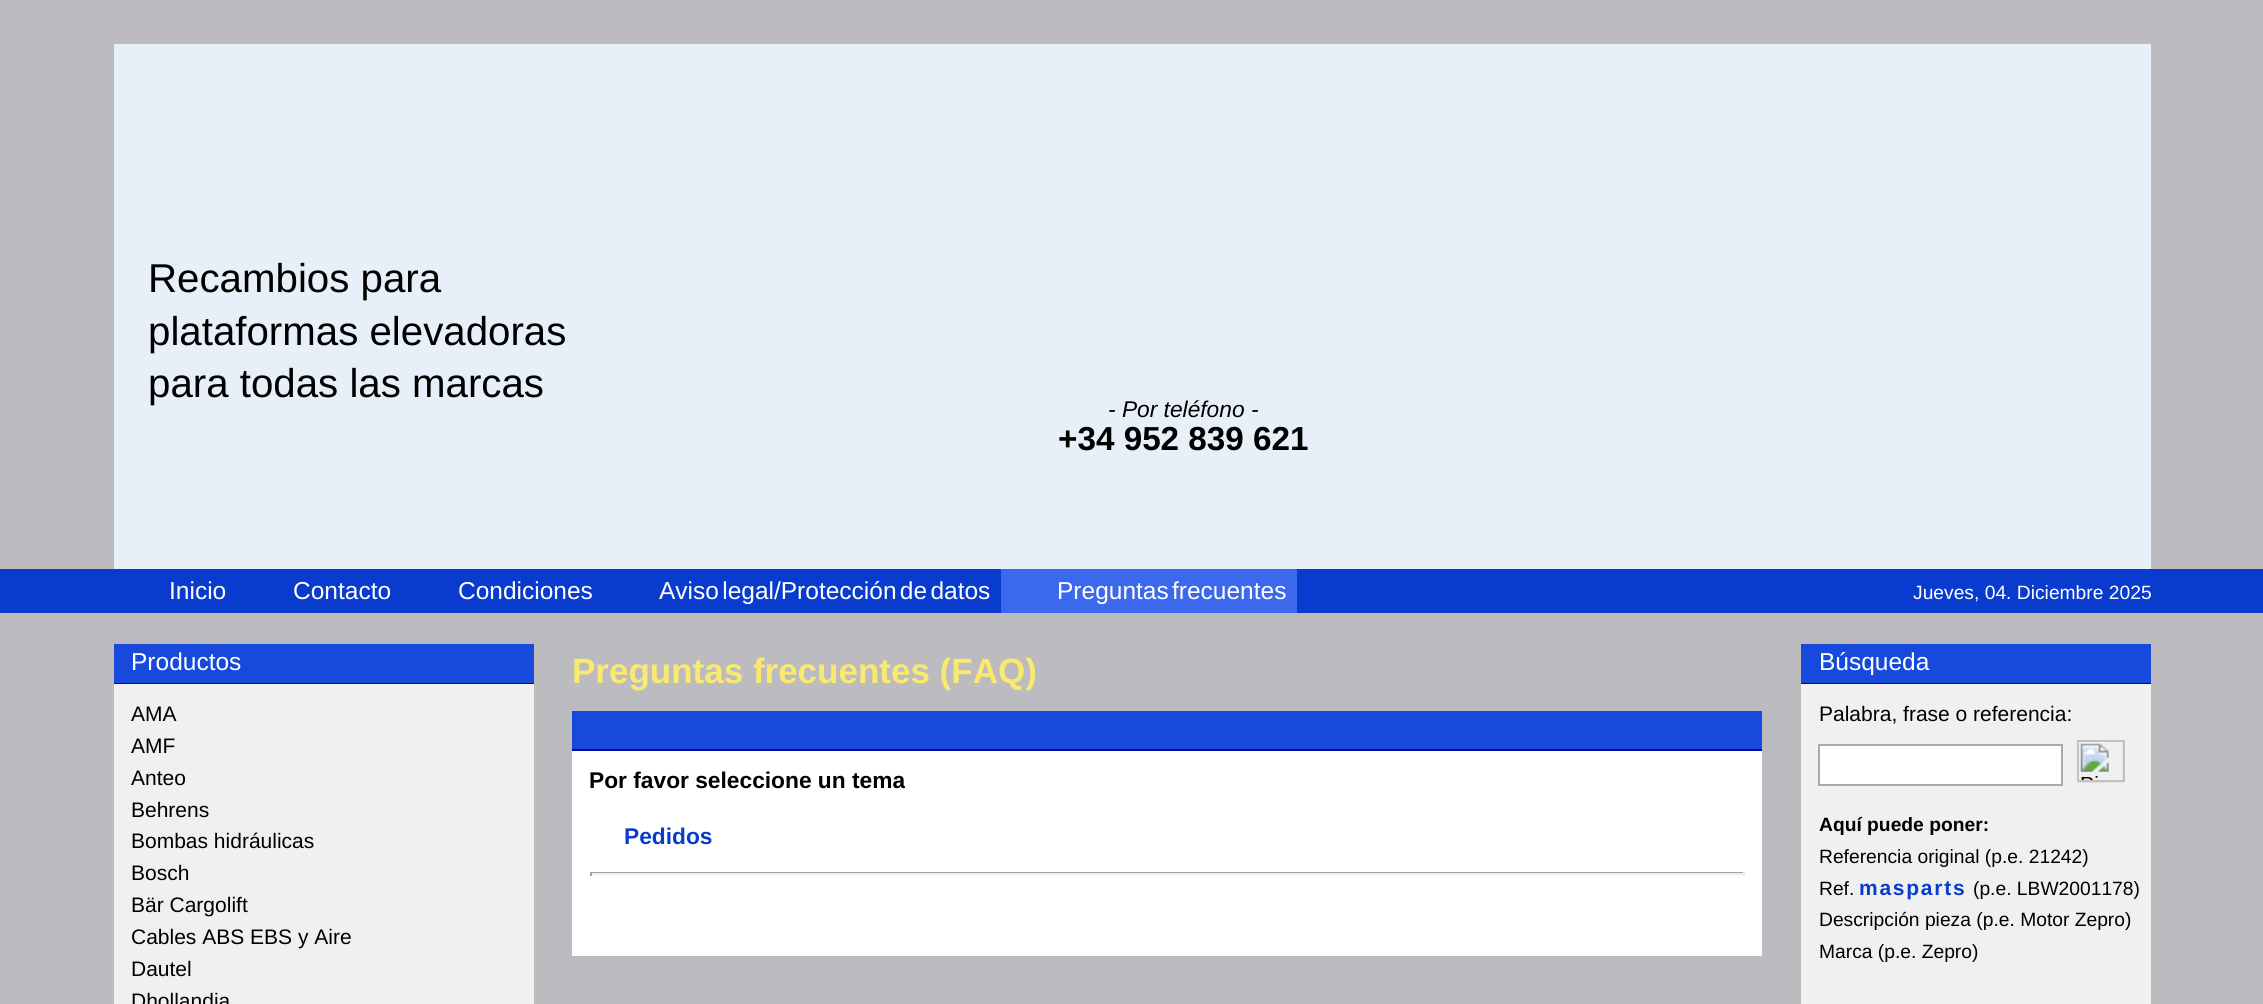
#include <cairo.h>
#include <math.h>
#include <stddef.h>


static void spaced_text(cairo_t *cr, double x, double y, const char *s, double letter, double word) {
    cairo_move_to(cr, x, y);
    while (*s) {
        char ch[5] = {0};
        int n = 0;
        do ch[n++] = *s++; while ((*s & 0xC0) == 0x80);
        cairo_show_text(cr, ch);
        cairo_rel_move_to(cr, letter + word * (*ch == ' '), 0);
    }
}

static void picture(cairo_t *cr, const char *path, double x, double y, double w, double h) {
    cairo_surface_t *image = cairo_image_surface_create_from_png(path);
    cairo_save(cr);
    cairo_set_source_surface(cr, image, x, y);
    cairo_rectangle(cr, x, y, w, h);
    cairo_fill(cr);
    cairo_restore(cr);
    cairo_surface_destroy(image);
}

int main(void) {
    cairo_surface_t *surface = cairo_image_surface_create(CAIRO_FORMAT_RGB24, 2263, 1004);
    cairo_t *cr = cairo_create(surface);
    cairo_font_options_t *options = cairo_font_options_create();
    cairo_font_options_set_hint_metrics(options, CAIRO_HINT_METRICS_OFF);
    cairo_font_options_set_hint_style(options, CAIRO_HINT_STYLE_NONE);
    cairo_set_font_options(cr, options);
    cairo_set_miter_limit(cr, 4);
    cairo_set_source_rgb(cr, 0.737, 0.737, 0.753);
    cairo_paint(cr);
    cairo_set_source_rgb(cr, 0.906, 0.937, 0.969);
    cairo_rectangle(cr, 114, 44, 2037, 525);
    cairo_fill(cr);
    cairo_select_font_face(cr, "Liberation Sans", CAIRO_FONT_SLANT_NORMAL, CAIRO_FONT_WEIGHT_NORMAL);
    cairo_set_font_size(cr, 40.25);
    cairo_set_source_rgb(cr, 0, 0, 0);
    cairo_move_to(cr, 148, 292);
    cairo_show_text(cr, "Recambios para");
    cairo_move_to(cr, 148, 345);
    cairo_show_text(cr, "plataformas elevadoras");
    cairo_move_to(cr, 148, 397);
    cairo_show_text(cr, "para todas las marcas");
    cairo_select_font_face(cr, "Liberation Sans", CAIRO_FONT_SLANT_ITALIC, CAIRO_FONT_WEIGHT_NORMAL);
    cairo_set_font_size(cr, 22.75);
    cairo_move_to(cr, 1108, 417);
    cairo_show_text(cr, "- Por teléfono -");
    cairo_select_font_face(cr, "Liberation Sans", CAIRO_FONT_SLANT_NORMAL, CAIRO_FONT_WEIGHT_BOLD);
    cairo_set_font_size(cr, 33.25);
    cairo_move_to(cr, 1058, 450);
    cairo_show_text(cr, "+34 952 839 621");
    cairo_set_source_rgb(cr, 0.035, 0.231, 0.808);
    cairo_rectangle(cr, 0, 569, 2263, 44);
    cairo_fill(cr);
    cairo_select_font_face(cr, "Liberation Sans", CAIRO_FONT_SLANT_NORMAL, CAIRO_FONT_WEIGHT_NORMAL);
    cairo_set_font_size(cr, 24.5);
    cairo_set_source_rgb(cr, 1, 1, 1);
    cairo_move_to(cr, 169, 599);
    cairo_show_text(cr, "Inicio");
    cairo_move_to(cr, 293, 599);
    cairo_show_text(cr, "Contacto");
    cairo_move_to(cr, 458, 599);
    cairo_show_text(cr, "Condiciones");
    spaced_text(cr, 659, 599, "Aviso legal/Protección de datos", 0, -3.5);
    cairo_set_source_rgb(cr, 0.231, 0.408, 0.925);
    cairo_rectangle(cr, 1001, 569, 296, 44);
    cairo_fill(cr);
    cairo_set_source_rgb(cr, 1, 1, 1);
    spaced_text(cr, 1057, 599, "Preguntas frecuentes", 0, -3.5);
    cairo_set_font_size(cr, 19.25);
    cairo_move_to(cr, 1913, 599);
    cairo_show_text(cr, "Jueves, 04. Diciembre 2025");
    cairo_set_source_rgb(cr, 0.09, 0.286, 0.863);
    cairo_rectangle(cr, 114, 644, 420, 39);
    cairo_fill(cr);
    cairo_set_source_rgb(cr, 0, 0.035, 0.612);
    cairo_rectangle(cr, 114, 683, 420, 1);
    cairo_fill(cr);
    cairo_set_font_size(cr, 24.5);
    cairo_set_source_rgb(cr, 1, 1, 1);
    cairo_move_to(cr, 131, 670);
    cairo_show_text(cr, "Productos");
    cairo_set_source_rgb(cr, 0.941, 0.941, 0.941);
    cairo_rectangle(cr, 114, 684, 420, 320);
    cairo_fill(cr);
    cairo_set_font_size(cr, 21);
    cairo_set_source_rgb(cr, 0, 0, 0);
    cairo_move_to(cr, 131, 721);
    cairo_show_text(cr, "AMA");
    cairo_move_to(cr, 131, 753);
    cairo_show_text(cr, "AMF");
    cairo_move_to(cr, 131, 785);
    cairo_show_text(cr, "Anteo");
    cairo_move_to(cr, 131, 817);
    cairo_show_text(cr, "Behrens");
    cairo_move_to(cr, 131, 848);
    cairo_show_text(cr, "Bombas hidráulicas");
    cairo_move_to(cr, 131, 880);
    cairo_show_text(cr, "Bosch");
    cairo_move_to(cr, 131, 912);
    cairo_show_text(cr, "Bär Cargolift");
    cairo_move_to(cr, 131, 944);
    cairo_show_text(cr, "Cables ABS EBS y Aire");
    cairo_move_to(cr, 131, 976);
    cairo_show_text(cr, "Dautel");
    cairo_move_to(cr, 131, 1008);
    cairo_show_text(cr, "Dhollandia");
    cairo_select_font_face(cr, "Liberation Sans", CAIRO_FONT_SLANT_NORMAL, CAIRO_FONT_WEIGHT_BOLD);
    cairo_set_font_size(cr, 35);
    cairo_set_source_rgb(cr, 0.973, 0.914, 0.435);
    cairo_move_to(cr, 572, 683);
    cairo_show_text(cr, "Preguntas frecuentes (FAQ)");
    cairo_set_source_rgb(cr, 0.09, 0.286, 0.863);
    cairo_rectangle(cr, 572, 711, 1190, 38);
    cairo_fill(cr);
    cairo_set_source_rgb(cr, 0, 0.035, 0.612);
    cairo_rectangle(cr, 572, 749, 1190, 2);
    cairo_fill(cr);
    cairo_set_source_rgb(cr, 1, 1, 1);
    cairo_rectangle(cr, 572, 751, 1190, 205);
    cairo_fill(cr);
    cairo_set_font_size(cr, 22.75);
    cairo_set_source_rgb(cr, 0, 0, 0);
    cairo_move_to(cr, 589, 788);
    cairo_show_text(cr, "Por favor seleccione un tema");
    cairo_set_source_rgb(cr, 0.035, 0.231, 0.808);
    cairo_move_to(cr, 624, 844);
    cairo_show_text(cr, "Pedidos");
    cairo_set_source_rgb(cr, 0.624, 0.624, 0.624);
    cairo_rectangle(cr, 590, 872, 1155, 1);
    cairo_fill(cr);
    cairo_set_source_rgb(cr, 0.933, 0.933, 0.933);
    cairo_rectangle(cr, 1743, 872, 2, 4);
    cairo_fill(cr);
    cairo_rectangle(cr, 590, 873, 1155, 2);
    cairo_fill(cr);
    cairo_set_source_rgb(cr, 0.624, 0.624, 0.624);
    cairo_rectangle(cr, 590, 872, 2, 4);
    cairo_fill(cr);
    cairo_set_source_rgb(cr, 0.09, 0.286, 0.863);
    cairo_rectangle(cr, 1801, 644, 350, 39);
    cairo_fill(cr);
    cairo_set_source_rgb(cr, 0, 0.035, 0.612);
    cairo_rectangle(cr, 1801, 683, 350, 1);
    cairo_fill(cr);
    cairo_select_font_face(cr, "Liberation Sans", CAIRO_FONT_SLANT_NORMAL, CAIRO_FONT_WEIGHT_NORMAL);
    cairo_set_font_size(cr, 24.5);
    cairo_set_source_rgb(cr, 1, 1, 1);
    cairo_move_to(cr, 1819, 670);
    cairo_show_text(cr, "Búsqueda");
    cairo_set_source_rgb(cr, 0.941, 0.941, 0.941);
    cairo_rectangle(cr, 1801, 684, 350, 320);
    cairo_fill(cr);
    cairo_set_font_size(cr, 21);
    cairo_set_source_rgb(cr, 0, 0, 0);
    cairo_move_to(cr, 1819, 721);
    cairo_show_text(cr, "Palabra, frase o referencia:");
    cairo_set_source_rgb(cr, 1, 1, 1);
    cairo_rectangle(cr, 1819, 745, 243, 40);
    cairo_fill_preserve(cr);
    cairo_set_source_rgb(cr, 0.667, 0.667, 0.667);
    cairo_stroke(cr);
    picture(cr, "img1.png", 2077, 742, 48, 41);
    cairo_rectangle(cr, 2078, 741, 46, 40);
    cairo_set_source_rgb(cr, 0.753, 0.753, 0.753);
    cairo_stroke(cr);
    cairo_select_font_face(cr, "Liberation Sans", CAIRO_FONT_SLANT_NORMAL, CAIRO_FONT_WEIGHT_BOLD);
    cairo_set_font_size(cr, 19.25);
    cairo_set_source_rgb(cr, 0, 0, 0);
    cairo_move_to(cr, 1819, 831);
    cairo_show_text(cr, "Aquí puede poner:");
    cairo_select_font_face(cr, "Liberation Sans", CAIRO_FONT_SLANT_NORMAL, CAIRO_FONT_WEIGHT_NORMAL);
    cairo_move_to(cr, 1819, 863);
    cairo_show_text(cr, "Referencia original (p.e. 21242)");
    cairo_move_to(cr, 1819, 895);
    cairo_show_text(cr, "Ref.");
    cairo_select_font_face(cr, "Liberation Sans", CAIRO_FONT_SLANT_NORMAL, CAIRO_FONT_WEIGHT_BOLD);
    cairo_set_font_size(cr, 21);
    cairo_set_source_rgb(cr, 0.035, 0.231, 0.808);
    spaced_text(cr, 1859, 895, "masparts", 1.75, 0);
    cairo_select_font_face(cr, "Liberation Sans", CAIRO_FONT_SLANT_NORMAL, CAIRO_FONT_WEIGHT_NORMAL);
    cairo_set_font_size(cr, 19.25);
    cairo_set_source_rgb(cr, 0, 0, 0);
    cairo_move_to(cr, 1973, 895);
    cairo_show_text(cr, "(p.e. LBW2001178)");
    cairo_move_to(cr, 1819, 926);
    cairo_show_text(cr, "Descripción pieza (p.e. Motor Zepro)");
    cairo_move_to(cr, 1819, 958);
    cairo_show_text(cr, "Marca (p.e. Zepro)");
    cairo_surface_write_to_png(surface, "page.png");
    cairo_font_options_destroy(options);
    cairo_destroy(cr);
    cairo_surface_destroy(surface);
    return 0;
}
